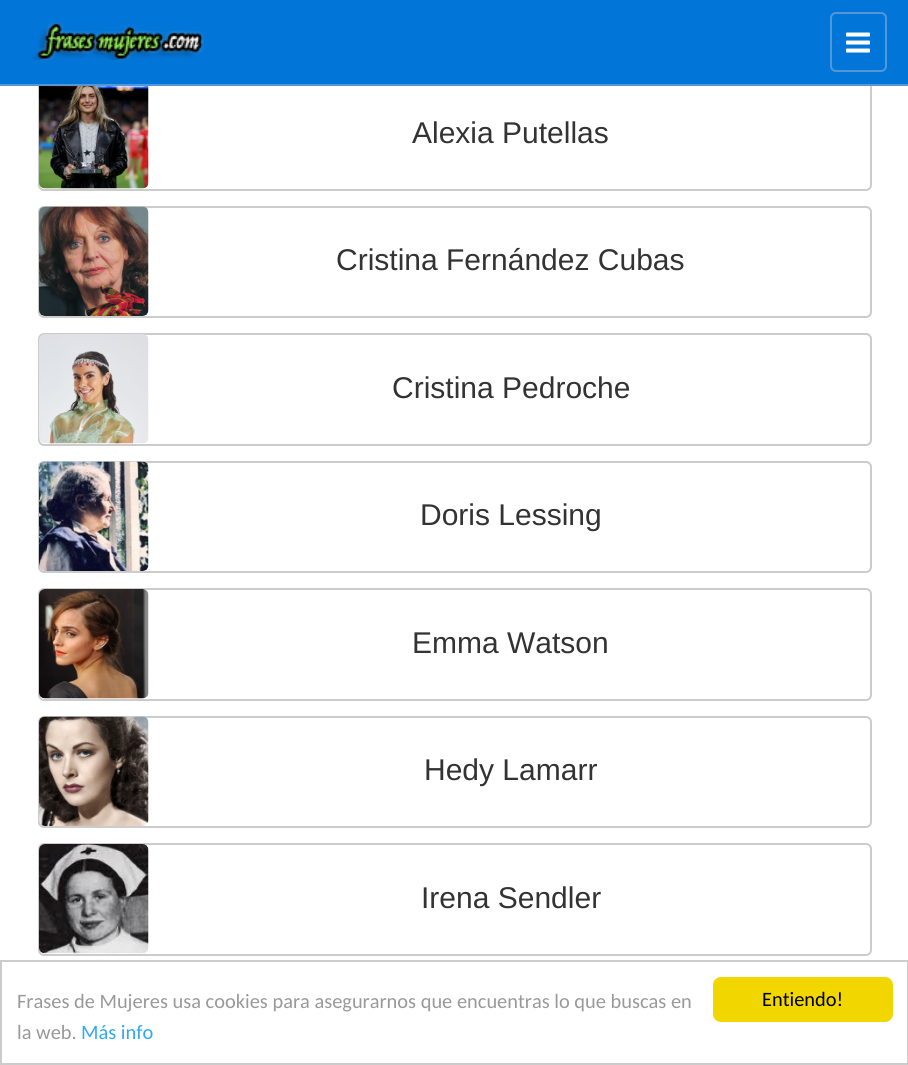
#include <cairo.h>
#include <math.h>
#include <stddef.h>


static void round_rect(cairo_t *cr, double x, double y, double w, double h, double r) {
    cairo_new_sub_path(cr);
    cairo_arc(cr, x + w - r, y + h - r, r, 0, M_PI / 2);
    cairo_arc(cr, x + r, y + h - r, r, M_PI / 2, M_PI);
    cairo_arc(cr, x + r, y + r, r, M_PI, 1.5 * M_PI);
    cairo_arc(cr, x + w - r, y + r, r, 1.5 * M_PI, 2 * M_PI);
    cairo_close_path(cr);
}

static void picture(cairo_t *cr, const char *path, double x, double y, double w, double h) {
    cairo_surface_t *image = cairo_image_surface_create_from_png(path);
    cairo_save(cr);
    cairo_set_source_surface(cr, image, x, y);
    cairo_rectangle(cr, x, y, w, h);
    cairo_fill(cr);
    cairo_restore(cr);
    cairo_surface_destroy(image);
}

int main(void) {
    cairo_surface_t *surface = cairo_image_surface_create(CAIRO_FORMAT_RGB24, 908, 1065);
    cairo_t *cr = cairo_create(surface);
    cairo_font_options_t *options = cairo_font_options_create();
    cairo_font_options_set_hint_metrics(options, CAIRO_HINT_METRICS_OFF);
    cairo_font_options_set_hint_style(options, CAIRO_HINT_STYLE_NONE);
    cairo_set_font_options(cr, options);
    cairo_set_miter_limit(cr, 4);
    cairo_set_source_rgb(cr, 1, 1, 1);
    cairo_paint(cr);
    round_rect(cr, 39, 79, 832, 111, 5);
    cairo_set_source_rgb(cr, 0.8, 0.8, 0.8);
    cairo_stroke(cr);
    cairo_set_source_rgb(cr, 0.008, 0.459, 0.847);
    cairo_rectangle(cr, 0, 0, 908, 84);
    cairo_fill(cr);
    cairo_set_source_rgb(cr, 0.325, 0.596, 0.831);
    cairo_rectangle(cr, 0, 84, 908, 2);
    cairo_fill(cr);
    picture(cr, "img1.png", 31, 22, 173, 38);
    round_rect(cr, 831, 13, 55, 58, 5);
    cairo_stroke(cr);
    picture(cr, "img2.png", 846, 32, 24, 21);
    picture(cr, "img3.png", 39, 86, 110, 103);
    cairo_select_font_face(cr, "Liberation Sans", CAIRO_FONT_SLANT_NORMAL, CAIRO_FONT_WEIGHT_NORMAL);
    cairo_set_font_size(cr, 30);
    cairo_set_source_rgb(cr, 0.2, 0.2, 0.2);
    cairo_move_to(cr, 412, 143);
    cairo_show_text(cr, "Alexia Putellas");
    round_rect(cr, 39, 207, 832, 110, 5);
    cairo_set_source_rgb(cr, 0.8, 0.8, 0.8);
    cairo_stroke(cr);
    picture(cr, "img4.png", 39, 206, 110, 110);
    cairo_set_source_rgb(cr, 0.2, 0.2, 0.2);
    cairo_move_to(cr, 336, 270);
    cairo_show_text(cr, "Cristina Fernández Cubas");
    round_rect(cr, 39, 334, 832, 111, 5);
    cairo_set_source_rgb(cr, 0.8, 0.8, 0.8);
    cairo_stroke(cr);
    picture(cr, "img5.png", 39, 334, 110, 110);
    cairo_set_source_rgb(cr, 0.2, 0.2, 0.2);
    cairo_move_to(cr, 392, 398);
    cairo_show_text(cr, "Cristina Pedroche");
    round_rect(cr, 39, 462, 832, 110, 5);
    cairo_set_source_rgb(cr, 0.8, 0.8, 0.8);
    cairo_stroke(cr);
    picture(cr, "img6.png", 39, 461, 110, 110);
    cairo_set_source_rgb(cr, 0.2, 0.2, 0.2);
    cairo_move_to(cr, 420, 525);
    cairo_show_text(cr, "Doris Lessing");
    round_rect(cr, 39, 589, 832, 111, 5);
    cairo_set_source_rgb(cr, 0.8, 0.8, 0.8);
    cairo_stroke(cr);
    picture(cr, "img7.png", 39, 589, 110, 110);
    cairo_set_source_rgb(cr, 0.2, 0.2, 0.2);
    cairo_move_to(cr, 412, 653);
    cairo_show_text(cr, "Emma Watson");
    round_rect(cr, 39, 717, 832, 110, 5);
    cairo_set_source_rgb(cr, 0.8, 0.8, 0.8);
    cairo_stroke(cr);
    picture(cr, "img8.png", 39, 716, 110, 110);
    cairo_set_source_rgb(cr, 0.2, 0.2, 0.2);
    cairo_move_to(cr, 424, 780);
    cairo_show_text(cr, "Hedy Lamarr");
    round_rect(cr, 39, 844, 832, 111, 5);
    cairo_set_source_rgb(cr, 0.8, 0.8, 0.8);
    cairo_stroke(cr);
    picture(cr, "img9.png", 39, 844, 110, 110);
    cairo_set_source_rgb(cr, 0.2, 0.2, 0.2);
    cairo_move_to(cr, 421, 908);
    cairo_show_text(cr, "Irena Sendler");
    cairo_rectangle(cr, 1, 961, 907, 103);
    cairo_set_source_rgb(cr, 0.8, 0.8, 0.8);
    cairo_stroke(cr);
    cairo_select_font_face(cr, "Carlito", CAIRO_FONT_SLANT_NORMAL, CAIRO_FONT_WEIGHT_NORMAL);
    cairo_set_font_size(cr, 20.4);
    cairo_set_source_rgb(cr, 0.6, 0.6, 0.6);
    cairo_move_to(cr, 17, 1008);
    cairo_show_text(cr, "Frases de Mujeres usa cookies para asegurarnos que encuentras lo que buscas en");
    cairo_move_to(cr, 17, 1039);
    cairo_show_text(cr, "la web.");
    cairo_set_source_rgb(cr, 0.192, 0.659, 0.941);
    cairo_move_to(cr, 81, 1039);
    cairo_show_text(cr, "Más info");
    cairo_set_source_rgb(cr, 0.945, 0.839, 0);
    round_rect(cr, 713, 977, 180, 45, 8);
    cairo_fill(cr);
    cairo_set_source_rgb(cr, 0, 0, 0);
    cairo_move_to(cr, 762, 1006);
    cairo_show_text(cr, "Entiendo!");
    cairo_surface_write_to_png(surface, "page.png");
    cairo_font_options_destroy(options);
    cairo_destroy(cr);
    cairo_surface_destroy(surface);
    return 0;
}
